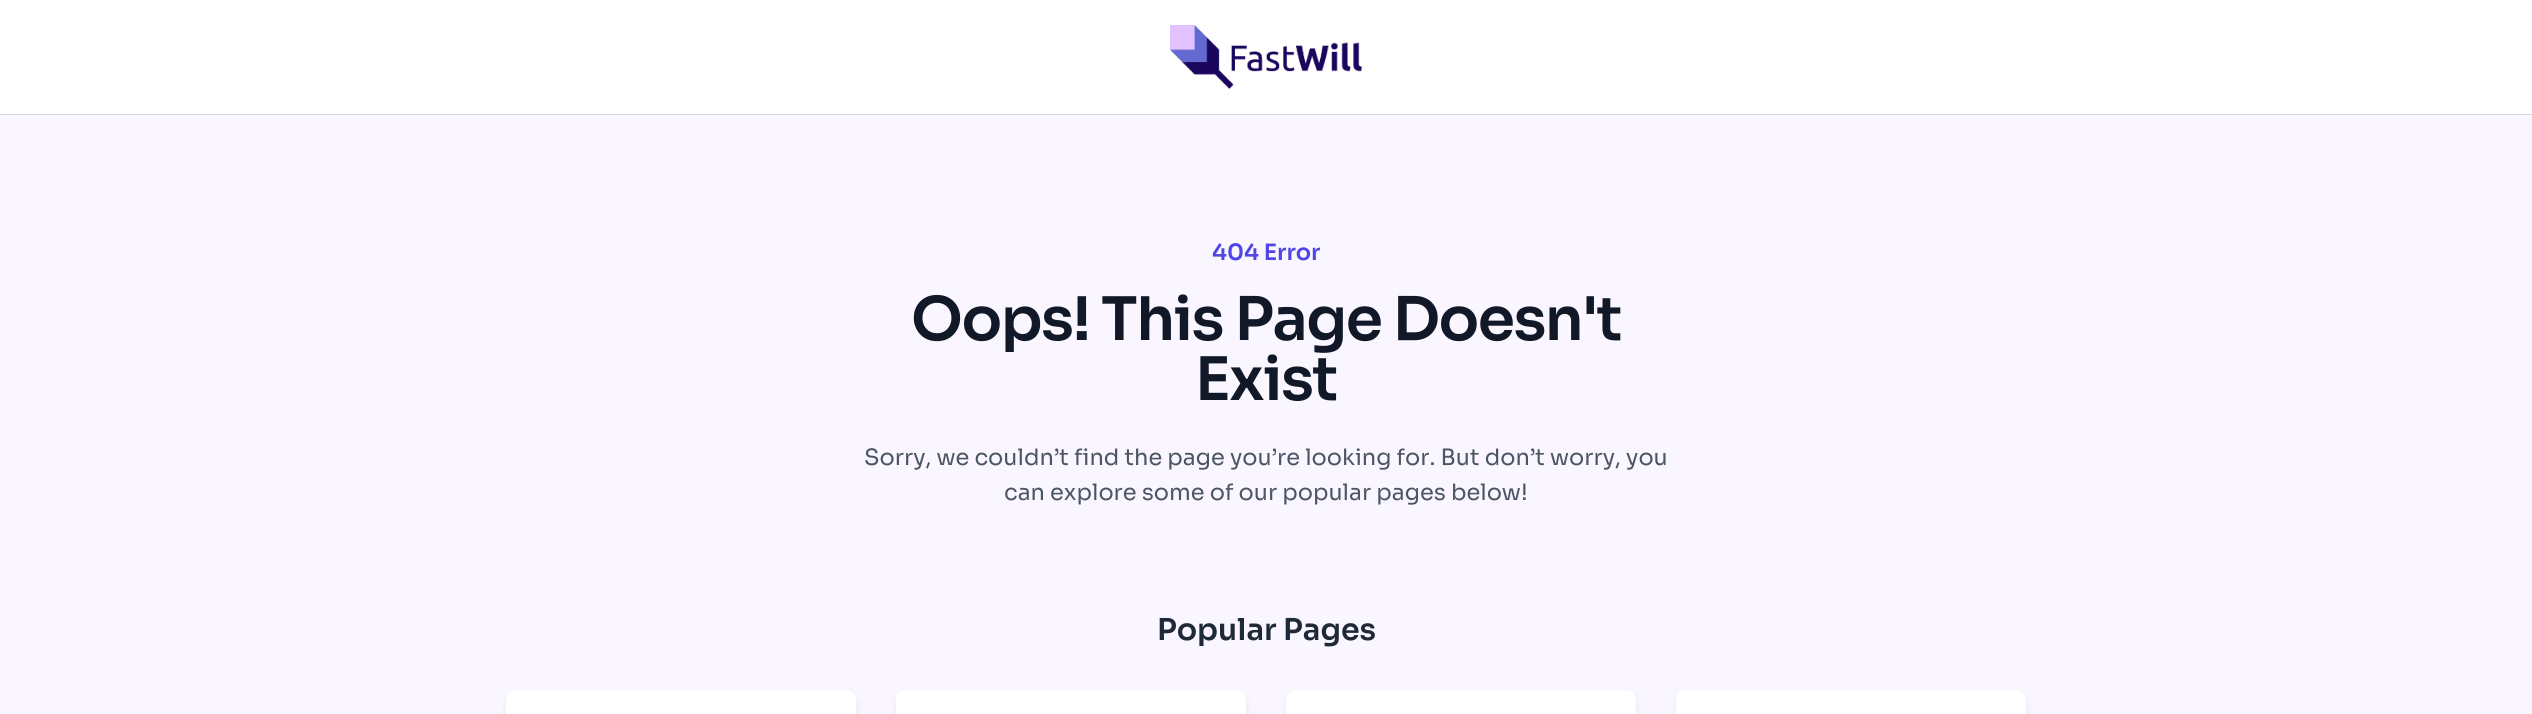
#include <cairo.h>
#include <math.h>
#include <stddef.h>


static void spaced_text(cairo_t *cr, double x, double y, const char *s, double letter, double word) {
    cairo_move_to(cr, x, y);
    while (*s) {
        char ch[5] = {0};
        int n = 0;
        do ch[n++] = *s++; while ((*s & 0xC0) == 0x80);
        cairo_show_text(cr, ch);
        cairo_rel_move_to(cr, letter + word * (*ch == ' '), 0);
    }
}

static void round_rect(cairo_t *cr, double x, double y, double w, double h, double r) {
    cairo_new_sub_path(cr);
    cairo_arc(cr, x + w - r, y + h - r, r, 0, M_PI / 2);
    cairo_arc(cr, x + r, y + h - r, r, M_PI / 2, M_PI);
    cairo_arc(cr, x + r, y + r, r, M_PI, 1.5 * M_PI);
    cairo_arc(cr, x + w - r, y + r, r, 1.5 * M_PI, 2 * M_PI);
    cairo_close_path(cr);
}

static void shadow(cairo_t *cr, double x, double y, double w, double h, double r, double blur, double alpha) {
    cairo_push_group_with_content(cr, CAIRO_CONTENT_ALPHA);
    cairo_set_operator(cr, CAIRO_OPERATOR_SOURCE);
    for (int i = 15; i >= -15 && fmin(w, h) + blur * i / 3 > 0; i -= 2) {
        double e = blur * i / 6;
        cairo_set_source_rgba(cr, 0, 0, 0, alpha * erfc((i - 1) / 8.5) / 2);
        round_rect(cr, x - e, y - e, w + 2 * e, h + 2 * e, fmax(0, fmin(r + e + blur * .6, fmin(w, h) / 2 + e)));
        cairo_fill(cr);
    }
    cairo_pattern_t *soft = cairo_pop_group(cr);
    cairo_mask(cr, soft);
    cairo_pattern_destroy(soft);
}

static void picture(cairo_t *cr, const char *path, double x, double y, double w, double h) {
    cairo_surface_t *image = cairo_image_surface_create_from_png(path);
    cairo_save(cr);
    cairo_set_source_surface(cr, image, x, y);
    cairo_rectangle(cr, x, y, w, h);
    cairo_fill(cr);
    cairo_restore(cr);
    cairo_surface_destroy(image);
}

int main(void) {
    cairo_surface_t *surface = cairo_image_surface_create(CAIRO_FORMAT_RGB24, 2532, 714);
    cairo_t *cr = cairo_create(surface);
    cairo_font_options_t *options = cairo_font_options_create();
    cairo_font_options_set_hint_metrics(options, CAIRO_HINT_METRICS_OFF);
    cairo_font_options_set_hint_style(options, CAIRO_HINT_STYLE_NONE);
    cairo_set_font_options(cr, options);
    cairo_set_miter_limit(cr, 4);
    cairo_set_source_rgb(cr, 1, 1, 1);
    cairo_paint(cr);
    cairo_set_source_rgb(cr, 0.82, 0.835, 0.859);
    cairo_rectangle(cr, 0, 114, 2532, 1);
    cairo_fill(cr);
    picture(cr, "img1.png", 1170, 25, 192, 64);
    cairo_set_source_rgb(cr, 0.98, 0.961, 1);
    cairo_rectangle(cr, 0, 115, 2532, 599);
    cairo_fill(cr);
    cairo_select_font_face(cr, "Sora SemiBold", CAIRO_FONT_SLANT_NORMAL, CAIRO_FONT_WEIGHT_NORMAL);
    cairo_set_font_size(cr, 22.5);
    cairo_set_source_rgb(cr, 0.31, 0.275, 0.898);
    cairo_move_to(cr, 1212, 260);
    cairo_show_text(cr, "404 Error");
    cairo_set_font_size(cr, 60);
    cairo_set_source_rgb(cr, 0.067, 0.094, 0.153);
    spaced_text(cr, 911, 340, "Oops! This Page Doesn't", -1.5, 0);
    spaced_text(cr, 1195, 400, "Exist", -1.5, 0);
    cairo_select_font_face(cr, "Sora", CAIRO_FONT_SLANT_NORMAL, CAIRO_FONT_WEIGHT_NORMAL);
    cairo_set_font_size(cr, 22.5);
    cairo_set_source_rgb(cr, 0.294, 0.333, 0.388);
    cairo_move_to(cr, 864, 465);
    cairo_show_text(cr, "Sorry, we couldn’t find the page you’re looking for. But don’t worry, you");
    cairo_move_to(cr, 1004, 500);
    cairo_show_text(cr, "can explore some of our popular pages below!");
    cairo_select_font_face(cr, "Sora SemiBold", CAIRO_FONT_SLANT_NORMAL, CAIRO_FONT_WEIGHT_NORMAL);
    cairo_set_font_size(cr, 30);
    cairo_set_source_rgb(cr, 0.122, 0.161, 0.216);
    cairo_move_to(cr, 1157, 640);
    cairo_show_text(cr, "Popular Pages");
    cairo_set_source_rgb(cr, 0, 0, 0);
    shadow(cr, 508, 696, 347, 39, 9, 4, 0.1);
    cairo_set_source_rgb(cr, 1, 1, 1);
    round_rect(cr, 506, 690, 350, 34, 10);
    cairo_fill(cr);
    cairo_set_source_rgb(cr, 0, 0, 0);
    shadow(cr, 898, 696, 347, 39, 9, 4, 0.1);
    cairo_set_source_rgb(cr, 1, 1, 1);
    round_rect(cr, 896, 690, 350, 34, 10);
    cairo_fill(cr);
    cairo_set_source_rgb(cr, 0, 0, 0);
    shadow(cr, 1288, 696, 347, 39, 9, 4, 0.1);
    cairo_set_source_rgb(cr, 1, 1, 1);
    round_rect(cr, 1286, 690, 350, 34, 10);
    cairo_fill(cr);
    cairo_set_source_rgb(cr, 0, 0, 0);
    shadow(cr, 1678, 696, 347, 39, 9, 4, 0.1);
    cairo_set_source_rgb(cr, 1, 1, 1);
    round_rect(cr, 1676, 690, 350, 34, 10);
    cairo_fill(cr);
    cairo_surface_write_to_png(surface, "page.png");
    cairo_font_options_destroy(options);
    cairo_destroy(cr);
    cairo_surface_destroy(surface);
    return 0;
}
